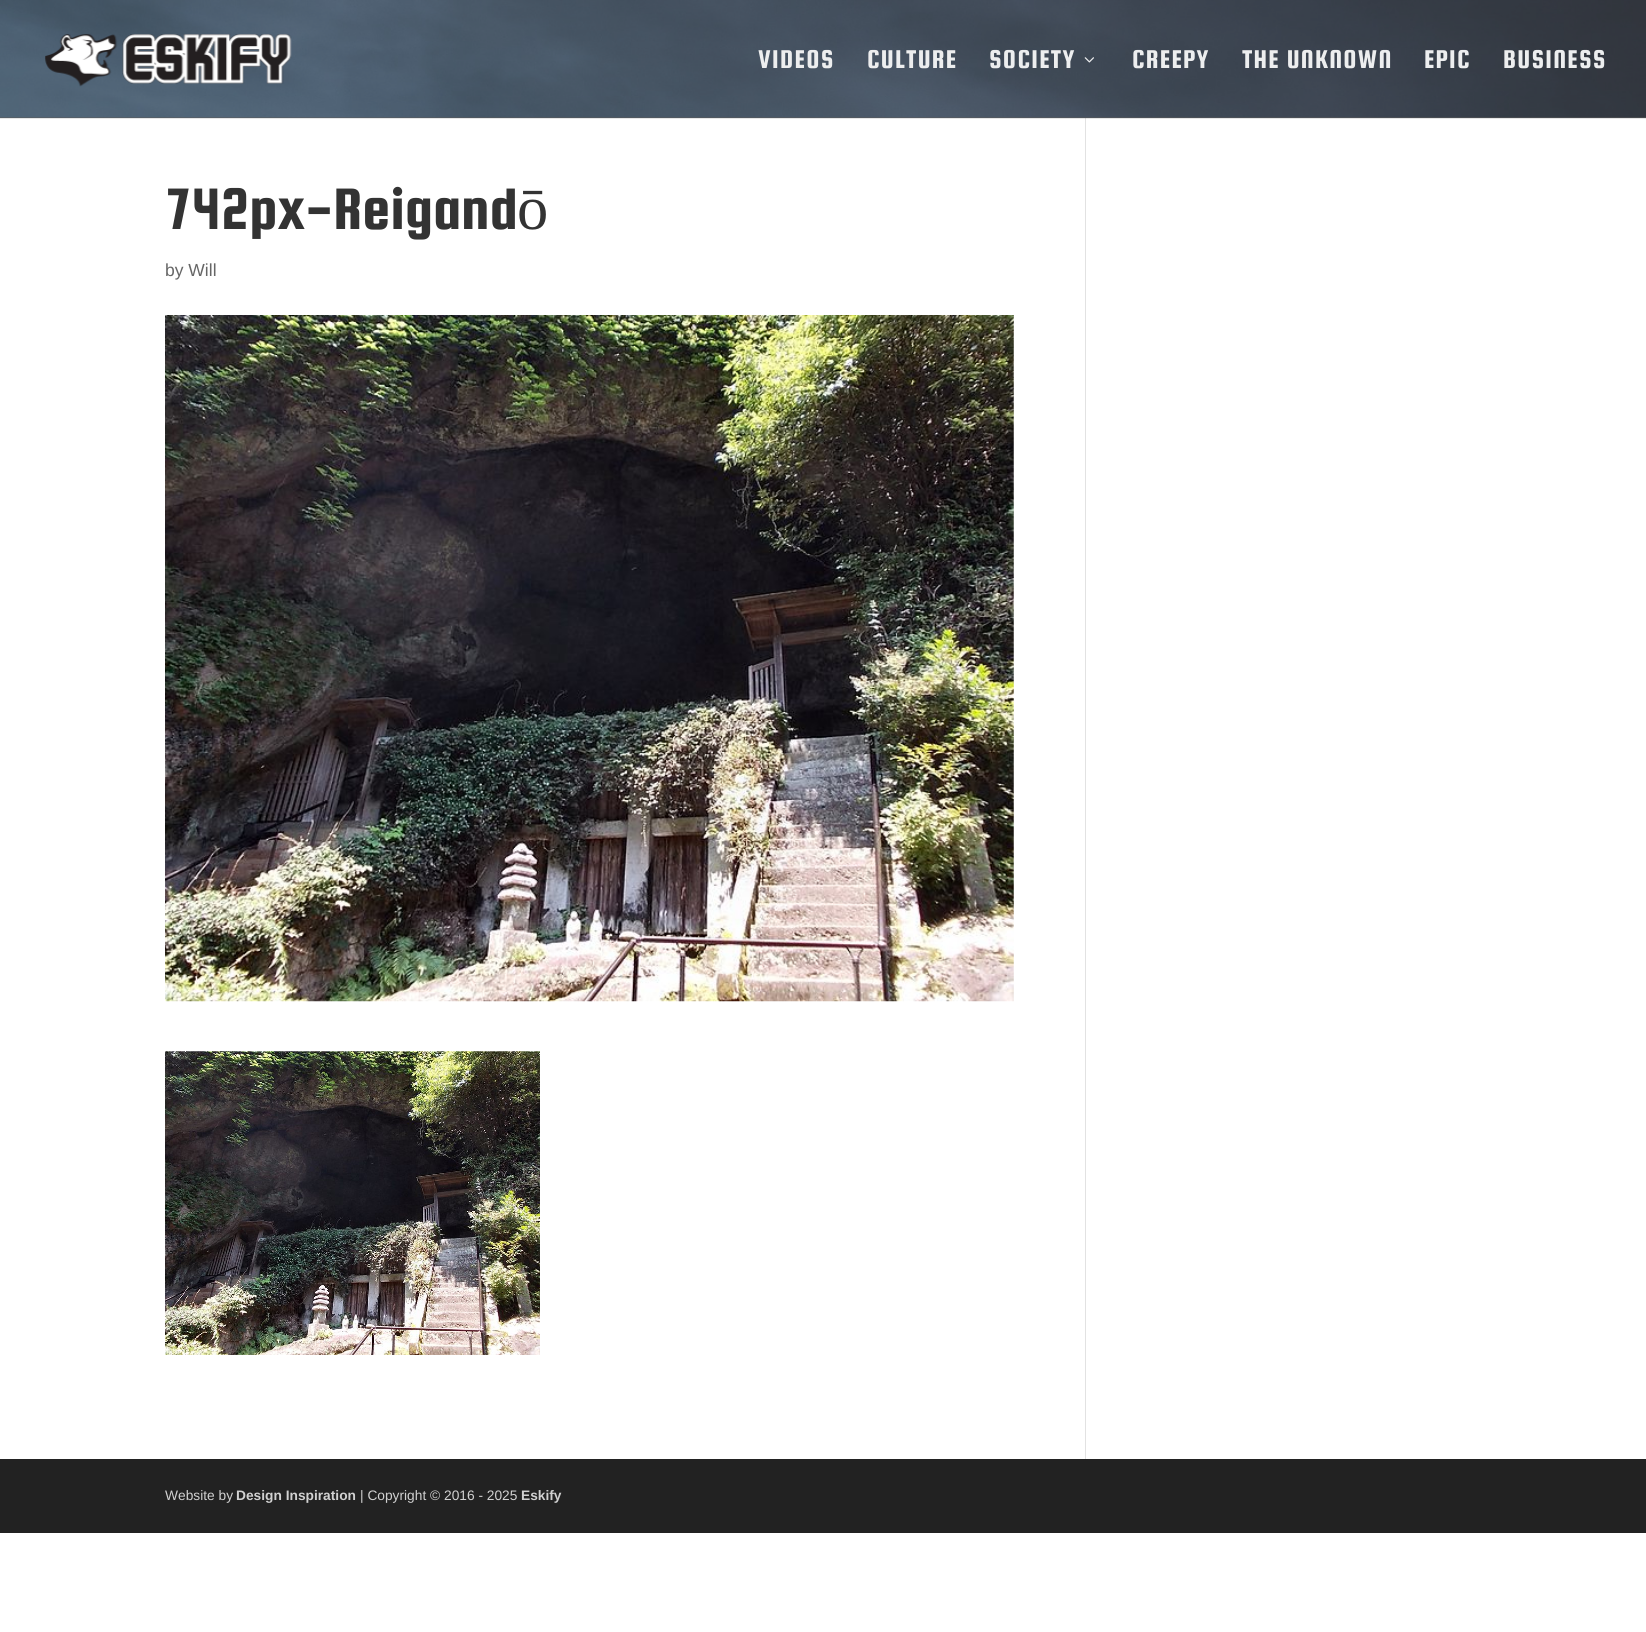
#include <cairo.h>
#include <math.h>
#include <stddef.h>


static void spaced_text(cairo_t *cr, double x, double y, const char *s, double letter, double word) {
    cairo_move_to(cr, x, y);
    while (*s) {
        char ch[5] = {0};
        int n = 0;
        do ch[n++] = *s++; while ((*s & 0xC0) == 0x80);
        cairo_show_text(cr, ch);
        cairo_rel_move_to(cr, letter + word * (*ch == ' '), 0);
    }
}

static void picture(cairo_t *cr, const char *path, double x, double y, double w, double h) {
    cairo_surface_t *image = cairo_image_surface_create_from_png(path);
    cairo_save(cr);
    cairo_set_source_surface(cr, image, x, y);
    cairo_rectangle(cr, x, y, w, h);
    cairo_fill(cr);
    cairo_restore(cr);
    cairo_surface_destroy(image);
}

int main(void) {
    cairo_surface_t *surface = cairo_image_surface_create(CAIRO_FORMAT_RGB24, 1646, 1632);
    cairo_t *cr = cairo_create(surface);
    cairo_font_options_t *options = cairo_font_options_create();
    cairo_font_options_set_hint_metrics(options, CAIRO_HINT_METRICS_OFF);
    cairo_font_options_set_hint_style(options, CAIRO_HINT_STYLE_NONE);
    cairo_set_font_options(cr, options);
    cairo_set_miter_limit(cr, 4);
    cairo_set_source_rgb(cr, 1, 1, 1);
    cairo_paint(cr);
    cairo_set_source_rgb(cr, 0.902, 0.902, 0.902);
    cairo_rectangle(cr, 0, 118, 1646, 1);
    cairo_fill(cr);
    cairo_set_source_rgb(cr, 0.357, 0.357, 0.357);
    cairo_rectangle(cr, 0, 0, 1646, 118);
    cairo_fill(cr);
    picture(cr, "img1.png", 0, 0, 1646, 118);
    picture(cr, "img2.png", 45, 34, 247, 53);
    cairo_select_font_face(cr, "Squada One", CAIRO_FONT_SLANT_NORMAL, CAIRO_FONT_WEIGHT_NORMAL);
    cairo_set_font_size(cr, 27.5);
    cairo_set_source_rgb(cr, 0.929, 0.933, 0.937);
    spaced_text(cr, 758, 68, "VIDEOS", 1.25, 0);
    spaced_text(cr, 867, 68, "CULTURE", 1.25, 0);
    spaced_text(cr, 989, 68, "SOCIETY", 1.25, 0);
    picture(cr, "img3.png", 1084, 57, 10, 6);
    spaced_text(cr, 1132, 68, "CREEPY", 1.25, 0);
    spaced_text(cr, 1242, 68, "THE UNKNOWN", 1.25, 0);
    spaced_text(cr, 1424, 68, "EPIC", 1.25, 0);
    spaced_text(cr, 1503, 68, "BUSINESS", 1.25, 0);
    cairo_set_font_size(cr, 62.5);
    cairo_set_source_rgb(cr, 0.2, 0.2, 0.2);
    cairo_move_to(cr, 165, 229);
    cairo_show_text(cr, "742px-Reigand");
    cairo_select_font_face(cr, "Liberation Serif", CAIRO_FONT_SLANT_NORMAL, CAIRO_FONT_WEIGHT_NORMAL);
    cairo_move_to(cr, 517, 229);
    cairo_show_text(cr, "ō");
    cairo_select_font_face(cr, "Liberation Sans", CAIRO_FONT_SLANT_NORMAL, CAIRO_FONT_WEIGHT_NORMAL);
    cairo_set_font_size(cr, 17.5);
    cairo_set_source_rgb(cr, 0.4, 0.4, 0.4);
    cairo_move_to(cr, 165, 276);
    cairo_show_text(cr, "by Will");
    picture(cr, "img4.png", 165, 315, 849, 687);
    picture(cr, "img5.png", 165, 1051, 375, 304);
    cairo_set_source_rgb(cr, 0.886, 0.886, 0.886);
    cairo_rectangle(cr, 1085, 119, 1, 1340);
    cairo_fill(cr);
    cairo_set_source_rgb(cr, 0.796, 0.796, 0.796);
    cairo_rectangle(cr, 1085, 118, 1, 1);
    cairo_fill(cr);
    cairo_set_source_rgb(cr, 0.133, 0.133, 0.133);
    cairo_rectangle(cr, 0, 1459, 1646, 74);
    cairo_fill(cr);
    cairo_set_font_size(cr, 13.75);
    cairo_set_source_rgb(cr, 0.82, 0.82, 0.82);
    cairo_move_to(cr, 165, 1500);
    cairo_show_text(cr, "Website by");
    cairo_select_font_face(cr, "Liberation Sans", CAIRO_FONT_SLANT_NORMAL, CAIRO_FONT_WEIGHT_BOLD);
    cairo_move_to(cr, 236, 1500);
    cairo_show_text(cr, "Design Inspiration");
    cairo_select_font_face(cr, "Liberation Sans", CAIRO_FONT_SLANT_NORMAL, CAIRO_FONT_WEIGHT_NORMAL);
    cairo_move_to(cr, 360, 1500);
    cairo_show_text(cr, "| Copyright © 2016 - 2025");
    cairo_select_font_face(cr, "Liberation Sans", CAIRO_FONT_SLANT_NORMAL, CAIRO_FONT_WEIGHT_BOLD);
    cairo_move_to(cr, 521, 1500);
    cairo_show_text(cr, "Eskify");
    cairo_surface_write_to_png(surface, "page.png");
    cairo_font_options_destroy(options);
    cairo_destroy(cr);
    cairo_surface_destroy(surface);
    return 0;
}
